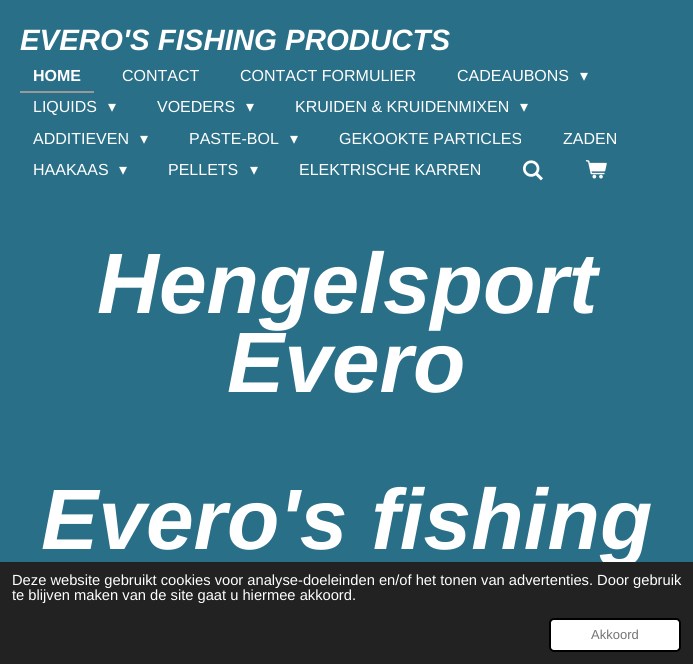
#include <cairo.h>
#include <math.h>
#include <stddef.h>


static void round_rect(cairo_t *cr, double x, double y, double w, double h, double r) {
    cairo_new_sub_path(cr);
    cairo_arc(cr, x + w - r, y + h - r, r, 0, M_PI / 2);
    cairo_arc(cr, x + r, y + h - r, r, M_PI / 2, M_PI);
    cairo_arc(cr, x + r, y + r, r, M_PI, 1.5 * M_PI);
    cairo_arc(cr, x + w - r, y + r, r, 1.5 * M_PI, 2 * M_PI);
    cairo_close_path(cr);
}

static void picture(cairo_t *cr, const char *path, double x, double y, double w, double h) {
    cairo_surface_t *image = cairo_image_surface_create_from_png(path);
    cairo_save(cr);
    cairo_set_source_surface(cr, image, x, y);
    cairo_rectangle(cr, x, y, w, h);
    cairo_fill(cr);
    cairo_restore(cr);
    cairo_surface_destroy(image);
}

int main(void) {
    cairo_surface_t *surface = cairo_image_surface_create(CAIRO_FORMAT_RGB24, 693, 664);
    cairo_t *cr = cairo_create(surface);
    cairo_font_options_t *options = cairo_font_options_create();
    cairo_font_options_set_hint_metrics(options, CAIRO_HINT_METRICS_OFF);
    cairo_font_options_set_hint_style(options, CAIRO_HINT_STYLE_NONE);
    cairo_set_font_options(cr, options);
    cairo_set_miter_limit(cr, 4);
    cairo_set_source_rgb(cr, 0.161, 0.435, 0.529);
    cairo_paint(cr);
    cairo_select_font_face(cr, "Liberation Sans", CAIRO_FONT_SLANT_ITALIC, CAIRO_FONT_WEIGHT_BOLD);
    cairo_set_font_size(cr, 29.4);
    cairo_set_source_rgb(cr, 1, 1, 1);
    cairo_move_to(cr, 20, 50);
    cairo_show_text(cr, "EVERO'S FISHING PRODUCTS");
    cairo_set_source_rgb(cr, 0.6, 0.6, 0.6);
    cairo_rectangle(cr, 20, 91, 74, 2);
    cairo_fill(cr);
    cairo_select_font_face(cr, "Liberation Sans", CAIRO_FONT_SLANT_NORMAL, CAIRO_FONT_WEIGHT_BOLD);
    cairo_set_font_size(cr, 16);
    cairo_set_source_rgb(cr, 1, 1, 1);
    cairo_move_to(cr, 33, 81);
    cairo_show_text(cr, "HOME");
    cairo_select_font_face(cr, "Liberation Sans", CAIRO_FONT_SLANT_NORMAL, CAIRO_FONT_WEIGHT_NORMAL);
    cairo_move_to(cr, 122, 81);
    cairo_show_text(cr, "CONTACT");
    cairo_move_to(cr, 240, 81);
    cairo_show_text(cr, "CONTACT FORMULIER");
    cairo_move_to(cr, 457, 81);
    cairo_show_text(cr, "CADEAUBONS");
    cairo_select_font_face(cr, "DejaVu Sans", CAIRO_FONT_SLANT_NORMAL, CAIRO_FONT_WEIGHT_NORMAL);
    cairo_move_to(cr, 580, 81);
    cairo_show_text(cr, "▾");
    cairo_select_font_face(cr, "Liberation Sans", CAIRO_FONT_SLANT_NORMAL, CAIRO_FONT_WEIGHT_NORMAL);
    cairo_move_to(cr, 33, 112);
    cairo_show_text(cr, "LIQUIDS");
    cairo_select_font_face(cr, "DejaVu Sans", CAIRO_FONT_SLANT_NORMAL, CAIRO_FONT_WEIGHT_NORMAL);
    cairo_move_to(cr, 108, 112);
    cairo_show_text(cr, "▾");
    cairo_select_font_face(cr, "Liberation Sans", CAIRO_FONT_SLANT_NORMAL, CAIRO_FONT_WEIGHT_NORMAL);
    cairo_move_to(cr, 157, 112);
    cairo_show_text(cr, "VOEDERS");
    cairo_select_font_face(cr, "DejaVu Sans", CAIRO_FONT_SLANT_NORMAL, CAIRO_FONT_WEIGHT_NORMAL);
    cairo_move_to(cr, 246, 112);
    cairo_show_text(cr, "▾");
    cairo_select_font_face(cr, "Liberation Sans", CAIRO_FONT_SLANT_NORMAL, CAIRO_FONT_WEIGHT_NORMAL);
    cairo_move_to(cr, 295, 112);
    cairo_show_text(cr, "KRUIDEN & KRUIDENMIXEN");
    cairo_select_font_face(cr, "DejaVu Sans", CAIRO_FONT_SLANT_NORMAL, CAIRO_FONT_WEIGHT_NORMAL);
    cairo_move_to(cr, 520, 112);
    cairo_show_text(cr, "▾");
    cairo_select_font_face(cr, "Liberation Sans", CAIRO_FONT_SLANT_NORMAL, CAIRO_FONT_WEIGHT_NORMAL);
    cairo_move_to(cr, 33, 144);
    cairo_show_text(cr, "ADDITIEVEN");
    cairo_select_font_face(cr, "DejaVu Sans", CAIRO_FONT_SLANT_NORMAL, CAIRO_FONT_WEIGHT_NORMAL);
    cairo_move_to(cr, 140, 144);
    cairo_show_text(cr, "▾");
    cairo_select_font_face(cr, "Liberation Sans", CAIRO_FONT_SLANT_NORMAL, CAIRO_FONT_WEIGHT_NORMAL);
    cairo_move_to(cr, 189, 144);
    cairo_show_text(cr, "PASTE-BOL");
    cairo_select_font_face(cr, "DejaVu Sans", CAIRO_FONT_SLANT_NORMAL, CAIRO_FONT_WEIGHT_NORMAL);
    cairo_move_to(cr, 290, 144);
    cairo_show_text(cr, "▾");
    cairo_select_font_face(cr, "Liberation Sans", CAIRO_FONT_SLANT_NORMAL, CAIRO_FONT_WEIGHT_NORMAL);
    cairo_move_to(cr, 339, 144);
    cairo_show_text(cr, "GEKOOKTE PARTICLES");
    cairo_move_to(cr, 563, 144);
    cairo_show_text(cr, "ZADEN");
    cairo_move_to(cr, 33, 175);
    cairo_show_text(cr, "HAAKAAS");
    cairo_select_font_face(cr, "DejaVu Sans", CAIRO_FONT_SLANT_NORMAL, CAIRO_FONT_WEIGHT_NORMAL);
    cairo_move_to(cr, 119, 175);
    cairo_show_text(cr, "▾");
    cairo_select_font_face(cr, "Liberation Sans", CAIRO_FONT_SLANT_NORMAL, CAIRO_FONT_WEIGHT_NORMAL);
    cairo_move_to(cr, 168, 175);
    cairo_show_text(cr, "PELLETS");
    cairo_select_font_face(cr, "DejaVu Sans", CAIRO_FONT_SLANT_NORMAL, CAIRO_FONT_WEIGHT_NORMAL);
    cairo_move_to(cr, 250, 175);
    cairo_show_text(cr, "▾");
    cairo_select_font_face(cr, "Liberation Sans", CAIRO_FONT_SLANT_NORMAL, CAIRO_FONT_WEIGHT_NORMAL);
    cairo_move_to(cr, 299, 175);
    cairo_show_text(cr, "ELEKTRISCHE KARREN");
    picture(cr, "img1.png", 523, 160, 20, 21);
    picture(cr, "img2.png", 585, 160, 22, 19);
    cairo_select_font_face(cr, "Liberation Sans", CAIRO_FONT_SLANT_ITALIC, CAIRO_FONT_WEIGHT_BOLD);
    cairo_set_font_size(cr, 85.75);
    cairo_move_to(cr, 97, 313);
    cairo_show_text(cr, "Hengelsport");
    cairo_move_to(cr, 227, 392);
    cairo_show_text(cr, "Evero");
    cairo_move_to(cr, 41, 549);
    cairo_show_text(cr, "Evero's fishing");
    cairo_set_source_rgb(cr, 0.133, 0.133, 0.133);
    cairo_rectangle(cr, 0, 562, 693, 102);
    cairo_fill(cr);
    cairo_select_font_face(cr, "Liberation Sans", CAIRO_FONT_SLANT_NORMAL, CAIRO_FONT_WEIGHT_NORMAL);
    cairo_set_font_size(cr, 14.7);
    cairo_set_source_rgb(cr, 1, 1, 1);
    cairo_move_to(cr, 12, 585);
    cairo_show_text(cr, "Deze website gebruikt cookies voor analyse-doeleinden en/of het tonen van advertenties. Door gebruik");
    cairo_move_to(cr, 12, 600);
    cairo_show_text(cr, "te blijven maken van de site gaat u hiermee akkoord.");
    round_rect(cr, 550, 619, 130, 32, 4);
    cairo_fill_preserve(cr);
    cairo_set_source_rgb(cr, 0, 0, 0);
    cairo_stroke(cr);
    cairo_set_font_size(cr, 13);
    cairo_set_source_rgb(cr, 0.451, 0.451, 0.451);
    cairo_move_to(cr, 591, 639);
    cairo_show_text(cr, "Akkoord");
    cairo_surface_write_to_png(surface, "page.png");
    cairo_font_options_destroy(options);
    cairo_destroy(cr);
    cairo_surface_destroy(surface);
    return 0;
}
